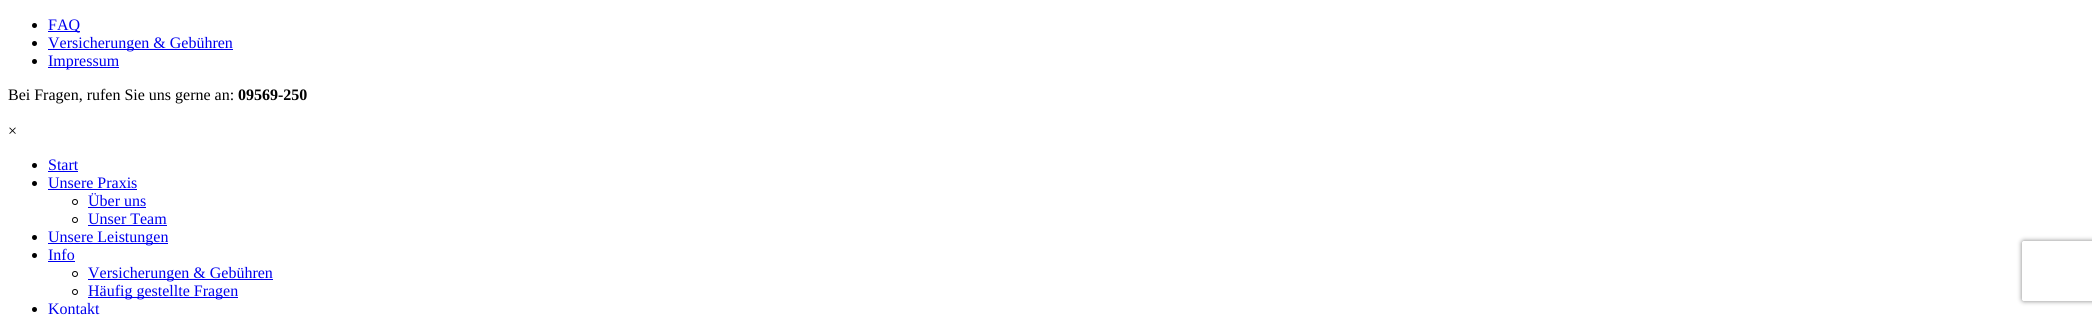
#include <cairo.h>
#include <math.h>
#include <stddef.h>


static void round_rect(cairo_t *cr, double x, double y, double w, double h, double r) {
    cairo_new_sub_path(cr);
    cairo_arc(cr, x + w - r, y + h - r, r, 0, M_PI / 2);
    cairo_arc(cr, x + r, y + h - r, r, M_PI / 2, M_PI);
    cairo_arc(cr, x + r, y + r, r, M_PI, 1.5 * M_PI);
    cairo_arc(cr, x + w - r, y + r, r, 1.5 * M_PI, 2 * M_PI);
    cairo_close_path(cr);
}

static void shadow(cairo_t *cr, double x, double y, double w, double h, double r, double blur, double alpha) {
    cairo_push_group_with_content(cr, CAIRO_CONTENT_ALPHA);
    cairo_set_operator(cr, CAIRO_OPERATOR_SOURCE);
    for (int i = 15; i >= -15 && fmin(w, h) + blur * i / 3 > 0; i -= 2) {
        double e = blur * i / 6;
        cairo_set_source_rgba(cr, 0, 0, 0, alpha * erfc((i - 1) / 8.5) / 2);
        round_rect(cr, x - e, y - e, w + 2 * e, h + 2 * e, fmax(0, fmin(r + e + blur * .6, fmin(w, h) / 2 + e)));
        cairo_fill(cr);
    }
    cairo_pattern_t *soft = cairo_pop_group(cr);
    cairo_mask(cr, soft);
    cairo_pattern_destroy(soft);
}

int main(void) {
    cairo_surface_t *surface = cairo_image_surface_create(CAIRO_FORMAT_RGB24, 2092, 315);
    cairo_t *cr = cairo_create(surface);
    cairo_font_options_t *options = cairo_font_options_create();
    cairo_font_options_set_hint_metrics(options, CAIRO_HINT_METRICS_OFF);
    cairo_font_options_set_hint_style(options, CAIRO_HINT_STYLE_NONE);
    cairo_set_font_options(cr, options);
    cairo_set_miter_limit(cr, 4);
    cairo_set_source_rgb(cr, 1, 1, 1);
    cairo_paint(cr);
    cairo_set_source_rgb(cr, 0, 0, 0);
    cairo_arc(cr, 34.5, 25.5, 2.5, 0, 2 * M_PI);
    cairo_fill(cr);
    cairo_set_source_rgb(cr, 0, 0, 0.933);
    cairo_rectangle(cr, 48, 31, 32, 1);
    cairo_fill(cr);
    cairo_select_font_face(cr, "Liberation Serif", CAIRO_FONT_SLANT_NORMAL, CAIRO_FONT_WEIGHT_NORMAL);
    cairo_set_font_size(cr, 16);
    cairo_move_to(cr, 48, 30);
    cairo_show_text(cr, "FAQ");
    cairo_set_source_rgb(cr, 0, 0, 0);
    cairo_new_path(cr);
    cairo_arc(cr, 34.5, 43.5, 2.5, 0, 2 * M_PI);
    cairo_fill(cr);
    cairo_set_source_rgb(cr, 0, 0, 0.933);
    cairo_rectangle(cr, 48, 49, 185, 1);
    cairo_fill(cr);
    cairo_move_to(cr, 48, 48);
    cairo_show_text(cr, "Versicherungen & Gebühren");
    cairo_set_source_rgb(cr, 0, 0, 0);
    cairo_new_path(cr);
    cairo_arc(cr, 34.5, 61.5, 2.5, 0, 2 * M_PI);
    cairo_fill(cr);
    cairo_set_source_rgb(cr, 0, 0, 0.933);
    cairo_rectangle(cr, 48, 67, 71, 1);
    cairo_fill(cr);
    cairo_move_to(cr, 48, 66);
    cairo_show_text(cr, "Impressum");
    cairo_set_source_rgb(cr, 0, 0, 0);
    cairo_move_to(cr, 8, 100);
    cairo_show_text(cr, "Bei Fragen, rufen Sie uns gerne an:");
    cairo_select_font_face(cr, "Liberation Serif", CAIRO_FONT_SLANT_NORMAL, CAIRO_FONT_WEIGHT_BOLD);
    cairo_move_to(cr, 238, 100);
    cairo_show_text(cr, "09569-250");
    cairo_select_font_face(cr, "Liberation Serif", CAIRO_FONT_SLANT_NORMAL, CAIRO_FONT_WEIGHT_NORMAL);
    cairo_move_to(cr, 8, 136);
    cairo_show_text(cr, "×");
    cairo_new_path(cr);
    cairo_arc(cr, 34.5, 165.5, 2.5, 0, 2 * M_PI);
    cairo_fill(cr);
    cairo_set_source_rgb(cr, 0, 0, 0.933);
    cairo_move_to(cr, 48, 170);
    cairo_show_text(cr, "Start");
    cairo_rectangle(cr, 48, 171, 30, 1);
    cairo_fill(cr);
    cairo_set_source_rgb(cr, 0, 0, 0);
    cairo_arc(cr, 34.5, 183.5, 2.5, 0, 2 * M_PI);
    cairo_fill(cr);
    cairo_set_source_rgb(cr, 0, 0, 0.933);
    cairo_move_to(cr, 48, 188);
    cairo_show_text(cr, "Unsere Praxis");
    cairo_rectangle(cr, 48, 189, 89, 1);
    cairo_fill(cr);
    cairo_arc(cr, 75, 202, 2.5, 0, 2 * M_PI);
    cairo_set_source_rgb(cr, 0, 0, 0);
    cairo_set_line_width(cr, 1);
    cairo_stroke(cr);
    cairo_set_source_rgb(cr, 0, 0, 0.933);
    cairo_move_to(cr, 88, 206);
    cairo_show_text(cr, "Über uns");
    cairo_rectangle(cr, 88, 207, 58, 1);
    cairo_fill(cr);
    cairo_arc(cr, 75, 220, 2.5, 0, 2 * M_PI);
    cairo_set_source_rgb(cr, 0, 0, 0);
    cairo_stroke(cr);
    cairo_set_source_rgb(cr, 0, 0, 0.933);
    cairo_move_to(cr, 88, 224);
    cairo_show_text(cr, "Unser Team");
    cairo_rectangle(cr, 88, 225, 79, 1);
    cairo_fill(cr);
    cairo_set_source_rgb(cr, 0, 0, 0);
    cairo_arc(cr, 34.5, 237.5, 2.5, 0, 2 * M_PI);
    cairo_fill(cr);
    cairo_set_source_rgb(cr, 0, 0, 0.933);
    cairo_rectangle(cr, 48, 243, 120, 1);
    cairo_fill(cr);
    cairo_move_to(cr, 48, 242);
    cairo_show_text(cr, "Unsere Leistungen");
    cairo_set_source_rgb(cr, 0, 0, 0);
    cairo_new_path(cr);
    cairo_arc(cr, 34.5, 255.5, 2.5, 0, 2 * M_PI);
    cairo_fill(cr);
    cairo_set_source_rgb(cr, 0, 0, 0.933);
    cairo_move_to(cr, 48, 260);
    cairo_show_text(cr, "Info");
    cairo_rectangle(cr, 48, 261, 27, 1);
    cairo_fill(cr);
    cairo_arc(cr, 75, 274, 2.5, 0, 2 * M_PI);
    cairo_set_source_rgb(cr, 0, 0, 0);
    cairo_stroke(cr);
    cairo_set_source_rgb(cr, 0, 0, 0.933);
    cairo_rectangle(cr, 88, 279, 185, 1);
    cairo_fill(cr);
    cairo_move_to(cr, 88, 278);
    cairo_show_text(cr, "Versicherungen & Gebühren");
    cairo_new_path(cr);
    cairo_arc(cr, 75, 292, 2.5, 0, 2 * M_PI);
    cairo_set_source_rgb(cr, 0, 0, 0);
    cairo_stroke(cr);
    cairo_set_source_rgb(cr, 0, 0, 0.933);
    cairo_rectangle(cr, 88, 297, 150, 1);
    cairo_fill(cr);
    cairo_move_to(cr, 88, 296);
    cairo_show_text(cr, "Häufig gestellte Fragen");
    cairo_set_source_rgb(cr, 0, 0, 0);
    cairo_new_path(cr);
    cairo_arc(cr, 34.5, 309.5, 2.5, 0, 2 * M_PI);
    cairo_fill(cr);
    cairo_set_source_rgb(cr, 0, 0, 0.933);
    cairo_move_to(cr, 48, 314);
    cairo_show_text(cr, "Kontakt");
    cairo_save(cr);
    cairo_set_fill_rule(cr, CAIRO_FILL_RULE_EVEN_ODD);
    cairo_new_path(cr);
    cairo_move_to(cr, 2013, 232);
    cairo_line_to(cr, 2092, 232);
    cairo_line_to(cr, 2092, 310);
    cairo_line_to(cr, 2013, 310);
    cairo_close_path(cr);
    cairo_move_to(cr, 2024, 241);
    cairo_line_to(cr, 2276, 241);
    cairo_curve_to(cr, 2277, 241, 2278, 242, 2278, 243);
    cairo_line_to(cr, 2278, 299);
    cairo_curve_to(cr, 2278, 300, 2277, 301, 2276, 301);
    cairo_line_to(cr, 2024, 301);
    cairo_curve_to(cr, 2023, 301, 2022, 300, 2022, 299);
    cairo_line_to(cr, 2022, 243);
    cairo_curve_to(cr, 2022, 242, 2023, 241, 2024, 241);
    cairo_close_path(cr);
    cairo_clip(cr);
    cairo_set_source_rgb(cr, 0.502, 0.502, 0.502);
    shadow(cr, 2022, 241, 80, 60, 2, 2.5, 1);
    cairo_restore(cr);
    cairo_surface_write_to_png(surface, "page.png");
    cairo_font_options_destroy(options);
    cairo_destroy(cr);
    cairo_surface_destroy(surface);
    return 0;
}
